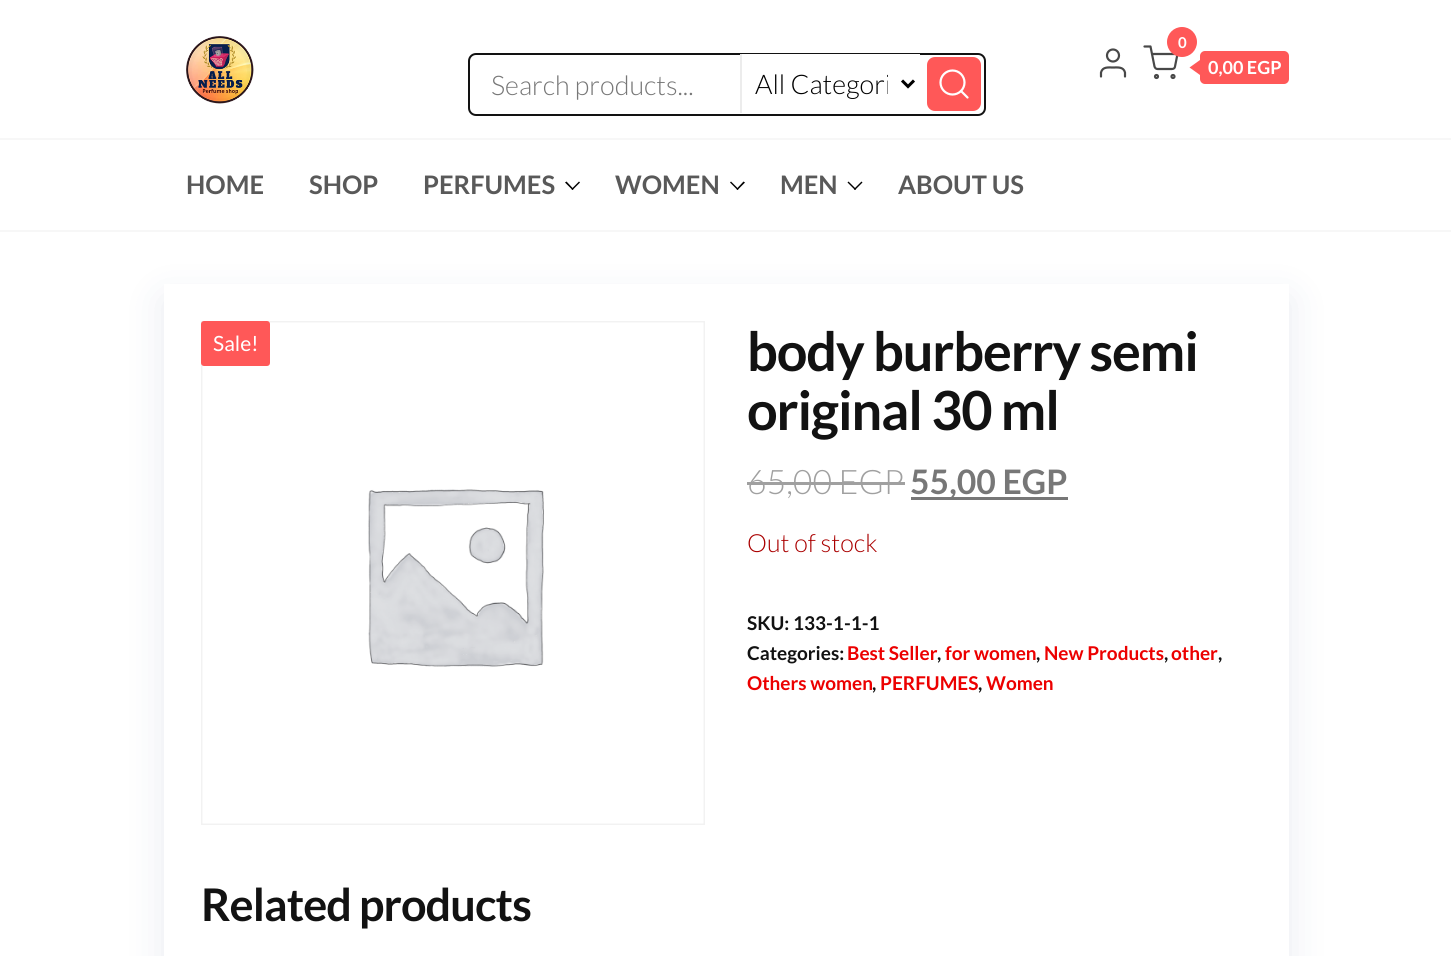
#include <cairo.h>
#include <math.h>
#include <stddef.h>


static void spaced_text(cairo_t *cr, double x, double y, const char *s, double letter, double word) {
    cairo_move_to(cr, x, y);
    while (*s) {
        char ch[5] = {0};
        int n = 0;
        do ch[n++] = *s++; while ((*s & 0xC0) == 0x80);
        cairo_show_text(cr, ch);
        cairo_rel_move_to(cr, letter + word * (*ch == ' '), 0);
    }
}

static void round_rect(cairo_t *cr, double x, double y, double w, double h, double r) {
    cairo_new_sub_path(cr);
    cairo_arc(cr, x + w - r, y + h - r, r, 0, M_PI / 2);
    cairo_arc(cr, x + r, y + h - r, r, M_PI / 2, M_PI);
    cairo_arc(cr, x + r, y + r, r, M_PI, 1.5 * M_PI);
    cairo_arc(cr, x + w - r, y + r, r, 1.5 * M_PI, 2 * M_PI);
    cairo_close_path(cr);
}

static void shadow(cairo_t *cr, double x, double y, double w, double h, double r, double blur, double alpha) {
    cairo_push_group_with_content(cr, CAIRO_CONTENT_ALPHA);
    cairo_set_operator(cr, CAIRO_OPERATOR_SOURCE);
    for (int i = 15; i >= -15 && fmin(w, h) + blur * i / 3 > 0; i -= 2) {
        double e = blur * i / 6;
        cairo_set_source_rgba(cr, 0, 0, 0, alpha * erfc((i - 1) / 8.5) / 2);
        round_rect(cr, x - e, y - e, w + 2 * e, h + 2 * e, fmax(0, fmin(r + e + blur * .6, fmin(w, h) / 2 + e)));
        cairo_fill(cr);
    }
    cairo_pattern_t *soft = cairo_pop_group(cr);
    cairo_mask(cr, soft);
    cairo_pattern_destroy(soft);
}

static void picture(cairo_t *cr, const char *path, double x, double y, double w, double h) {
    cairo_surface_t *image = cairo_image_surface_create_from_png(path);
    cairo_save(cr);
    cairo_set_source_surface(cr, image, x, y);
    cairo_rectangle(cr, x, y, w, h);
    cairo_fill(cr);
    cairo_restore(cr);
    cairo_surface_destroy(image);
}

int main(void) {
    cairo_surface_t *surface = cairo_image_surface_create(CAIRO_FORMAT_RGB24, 1451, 956);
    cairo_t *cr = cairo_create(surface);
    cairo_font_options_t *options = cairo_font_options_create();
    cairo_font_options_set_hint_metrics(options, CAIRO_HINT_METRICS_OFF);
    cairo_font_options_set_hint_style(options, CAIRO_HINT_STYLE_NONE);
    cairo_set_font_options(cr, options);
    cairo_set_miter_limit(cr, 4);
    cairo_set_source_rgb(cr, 1, 1, 1);
    cairo_paint(cr);
    cairo_set_source_rgb(cr, 0.965, 0.965, 0.965);
    cairo_rectangle(cr, 0, 138, 1451, 2);
    cairo_fill(cr);
    picture(cr, "img1.png", 186, 36, 68, 68);
    cairo_arc(cr, 1113, 55.5, 6, 0, 2 * M_PI);
    cairo_set_source_rgb(cr, 0.282, 0.282, 0.282);
    cairo_set_line_width(cr, 2.2);
    cairo_stroke(cr);
    cairo_new_path(cr);
    cairo_move_to(cr, 1125, 76.5);
    cairo_line_to(cr, 1125, 72.5);
    cairo_curve_to(cr, 1123.5, 66.5, 1117.5, 67.5, 1113, 67.5);
    cairo_curve_to(cr, 1108.5, 67.5, 1102.5, 66.5, 1101, 72.5);
    cairo_line_to(cr, 1101, 76.5);
    cairo_set_line_cap(cr, CAIRO_LINE_CAP_ROUND);
    cairo_set_line_join(cr, CAIRO_LINE_JOIN_ROUND);
    cairo_stroke(cr);
    cairo_new_path(cr);
    cairo_move_to(cr, 1144.5, 46.5);
    cairo_line_to(cr, 1150.5, 46.5);
    cairo_line_to(cr, 1154.5, 66.5);
    cairo_curve_to(cr, 1155, 68, 1156, 69, 1157.5, 69);
    cairo_line_to(cr, 1172, 69);
    cairo_curve_to(cr, 1173.5, 69, 1175, 68, 1175, 66.5);
    cairo_line_to(cr, 1177.5, 54);
    cairo_line_to(cr, 1152, 54);
    cairo_stroke(cr);
    cairo_set_source_rgb(cr, 1, 0.345, 0.345);
    cairo_arc(cr, 1182, 42, 15, 0, 2 * M_PI);
    cairo_fill(cr);
    cairo_select_font_face(cr, "Lato", CAIRO_FONT_SLANT_NORMAL, CAIRO_FONT_WEIGHT_BOLD);
    cairo_set_font_size(cr, 15);
    cairo_set_source_rgb(cr, 1, 1, 1);
    cairo_move_to(cr, 1178, 48);
    cairo_show_text(cr, "0");
    cairo_set_source_rgb(cr, 1, 0.345, 0.345);
    round_rect(cr, 1200, 51, 89, 33, 5);
    cairo_fill(cr);
    cairo_new_path(cr);
    cairo_move_to(cr, 1200, 60);
    cairo_line_to(cr, 1200, 75);
    cairo_line_to(cr, 1189.5, 67.5);
    cairo_close_path(cr);
    cairo_fill(cr);
    cairo_set_font_size(cr, 18);
    cairo_set_source_rgb(cr, 1, 1, 1);
    cairo_move_to(cr, 1208, 74);
    cairo_show_text(cr, "0,00 EGP");
    cairo_new_path(cr);
    cairo_arc(cr, 1156.5, 76.5, 1.5, 0, 2 * M_PI);
    cairo_set_source_rgb(cr, 0.282, 0.282, 0.282);
    cairo_set_line_cap(cr, CAIRO_LINE_CAP_BUTT);
    cairo_set_line_join(cr, CAIRO_LINE_JOIN_MITER);
    cairo_stroke(cr);
    cairo_arc(cr, 1173, 76.5, 1.5, 0, 2 * M_PI);
    cairo_stroke(cr);
    round_rect(cr, 469, 54, 516, 61, 7);
    cairo_set_source_rgb(cr, 0.071, 0.071, 0.071);
    cairo_set_line_width(cr, 2);
    cairo_stroke(cr);
    cairo_select_font_face(cr, "Lato Light", CAIRO_FONT_SLANT_NORMAL, CAIRO_FONT_WEIGHT_NORMAL);
    cairo_set_font_size(cr, 27);
    cairo_set_source_rgb(cr, 0.467, 0.467, 0.467);
    cairo_move_to(cr, 491, 95);
    cairo_show_text(cr, "Search products...");
    cairo_set_source_rgb(cr, 1, 1, 1);
    cairo_rectangle(cr, 742, 54, 178, 1);
    cairo_fill(cr);
    cairo_set_source_rgb(cr, 0.925, 0.925, 0.925);
    cairo_rectangle(cr, 740, 54, 2, 59);
    cairo_fill(cr);
    cairo_new_path(cr);
    cairo_move_to(cr, 902, 80.5);
    cairo_line_to(cr, 908, 86.5);
    cairo_line_to(cr, 914, 80.5);
    cairo_set_source_rgb(cr, 0, 0, 0);
    cairo_set_line_width(cr, 3);
    cairo_stroke(cr);
    cairo_save(cr);
    cairo_rectangle(cr, 755, 66, 133, 36);
    cairo_clip(cr);
    cairo_move_to(cr, 755, 94);
    cairo_show_text(cr, "All Categori");
    cairo_restore(cr);
    cairo_set_source_rgb(cr, 1, 0.345, 0.345);
    round_rect(cr, 927, 57, 54, 54, 8);
    cairo_fill(cr);
    cairo_arc(cr, 952.5, 82.5, 12, 0, 2 * M_PI);
    cairo_set_source_rgb(cr, 1, 1, 1);
    cairo_set_line_width(cr, 2.2);
    cairo_stroke(cr);
    cairo_new_path(cr);
    cairo_move_to(cr, 967.5, 97.5);
    cairo_line_to(cr, 961, 91);
    cairo_set_line_cap(cr, CAIRO_LINE_CAP_ROUND);
    cairo_set_line_join(cr, CAIRO_LINE_JOIN_ROUND);
    cairo_stroke(cr);
    cairo_set_source_rgb(cr, 0.965, 0.965, 0.965);
    cairo_rectangle(cr, 0, 230, 1451, 2);
    cairo_fill(cr);
    cairo_select_font_face(cr, "Lato", CAIRO_FONT_SLANT_NORMAL, CAIRO_FONT_WEIGHT_BOLD);
    cairo_set_font_size(cr, 25.5);
    cairo_set_source_rgb(cr, 0.349, 0.349, 0.349);
    cairo_move_to(cr, 186, 194);
    cairo_show_text(cr, "HOME");
    cairo_move_to(cr, 309, 194);
    cairo_show_text(cr, "SHOP");
    cairo_move_to(cr, 423, 194);
    cairo_show_text(cr, "PERFUMES");
    cairo_set_source_rgb(cr, 0, 0, 0);
    cairo_new_path(cr);
    cairo_move_to(cr, 580, 182.5);
    cairo_line_to(cr, 572.5, 190);
    cairo_line_to(cr, 571.5, 189);
    cairo_line_to(cr, 579, 181.5);
    cairo_close_path(cr);
    cairo_fill(cr);
    cairo_new_path(cr);
    cairo_move_to(cr, 573.5, 189);
    cairo_line_to(cr, 572.5, 190);
    cairo_line_to(cr, 565, 182.5);
    cairo_line_to(cr, 566.5, 181.5);
    cairo_close_path(cr);
    cairo_fill(cr);
    cairo_set_source_rgb(cr, 0.349, 0.349, 0.349);
    cairo_move_to(cr, 615, 194);
    cairo_show_text(cr, "WOMEN");
    cairo_set_source_rgb(cr, 0, 0, 0);
    cairo_new_path(cr);
    cairo_move_to(cr, 745, 182.5);
    cairo_line_to(cr, 737.5, 190);
    cairo_line_to(cr, 736.5, 189);
    cairo_line_to(cr, 743.5, 181.5);
    cairo_close_path(cr);
    cairo_fill(cr);
    cairo_new_path(cr);
    cairo_move_to(cr, 738.5, 189);
    cairo_line_to(cr, 737.5, 190);
    cairo_line_to(cr, 730, 182.5);
    cairo_line_to(cr, 731, 181.5);
    cairo_close_path(cr);
    cairo_fill(cr);
    cairo_set_source_rgb(cr, 0.349, 0.349, 0.349);
    cairo_move_to(cr, 780, 194);
    cairo_show_text(cr, "MEN");
    cairo_set_source_rgb(cr, 0, 0, 0);
    cairo_new_path(cr);
    cairo_move_to(cr, 862.5, 182.5);
    cairo_line_to(cr, 855, 190);
    cairo_line_to(cr, 854, 189);
    cairo_line_to(cr, 861.5, 181.5);
    cairo_close_path(cr);
    cairo_fill(cr);
    cairo_new_path(cr);
    cairo_move_to(cr, 856, 189);
    cairo_line_to(cr, 855, 190);
    cairo_line_to(cr, 847.5, 182.5);
    cairo_line_to(cr, 848.5, 181.5);
    cairo_close_path(cr);
    cairo_fill(cr);
    cairo_set_source_rgb(cr, 0.349, 0.349, 0.349);
    cairo_move_to(cr, 898, 194);
    cairo_show_text(cr, "ABOUT US");
    cairo_save(cr);
    cairo_set_fill_rule(cr, CAIRO_FILL_RULE_EVEN_ODD);
    cairo_new_path(cr);
    cairo_move_to(cr, 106, 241);
    cairo_line_to(cr, 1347, 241);
    cairo_line_to(cr, 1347, 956);
    cairo_line_to(cr, 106, 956);
    cairo_close_path(cr);
    cairo_move_to(cr, 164, 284);
    cairo_line_to(cr, 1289, 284);
    cairo_line_to(cr, 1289, 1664);
    cairo_line_to(cr, 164, 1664);
    cairo_close_path(cr);
    cairo_clip(cr);
    cairo_set_source_rgb(cr, 0.098, 0.176, 0.431);
    shadow(cr, 164, 299, 1125, 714, 0, 19, 0.1);
    cairo_restore(cr);
    cairo_rectangle(cr, 202, 322, 502, 502);
    cairo_set_source_rgb(cr, 0.949, 0.949, 0.949);
    cairo_set_line_width(cr, 2);
    cairo_set_line_cap(cr, CAIRO_LINE_CAP_BUTT);
    cairo_set_line_join(cr, CAIRO_LINE_JOIN_MITER);
    cairo_stroke(cr);
    picture(cr, "img2.png", 202, 322, 502, 502);
    cairo_set_font_size(cr, 54);
    cairo_set_source_rgb(cr, 0.071, 0.071, 0.071);
    spaced_text(cr, 747, 371, "body burberry semi", -1.1, 0);
    spaced_text(cr, 747, 430, "original 30 ml", -1.1, 0);
    cairo_select_font_face(cr, "Lato Light", CAIRO_FONT_SLANT_NORMAL, CAIRO_FONT_WEIGHT_NORMAL);
    cairo_set_font_size(cr, 33.75);
    cairo_set_source_rgb(cr, 0.627, 0.627, 0.627);
    cairo_move_to(cr, 747, 494);
    cairo_show_text(cr, "65,00 EGP");
    cairo_rectangle(cr, 747, 482, 158, 3);
    cairo_fill(cr);
    cairo_set_source_rgb(cr, 0.467, 0.467, 0.467);
    cairo_rectangle(cr, 911, 497, 157, 3);
    cairo_fill(cr);
    cairo_select_font_face(cr, "Lato", CAIRO_FONT_SLANT_NORMAL, CAIRO_FONT_WEIGHT_BOLD);
    cairo_move_to(cr, 910, 494);
    cairo_show_text(cr, "55,00 EGP");
    cairo_select_font_face(cr, "Lato Light", CAIRO_FONT_SLANT_NORMAL, CAIRO_FONT_WEIGHT_NORMAL);
    cairo_set_font_size(cr, 25);
    cairo_set_source_rgb(cr, 0.667, 0, 0);
    cairo_move_to(cr, 747, 552);
    cairo_show_text(cr, "Out of stock");
    cairo_select_font_face(cr, "Lato", CAIRO_FONT_SLANT_NORMAL, CAIRO_FONT_WEIGHT_BOLD);
    cairo_set_font_size(cr, 19);
    cairo_set_source_rgb(cr, 0.071, 0.071, 0.071);
    cairo_move_to(cr, 747, 630);
    cairo_show_text(cr, "SKU: 133-1-1-1");
    cairo_move_to(cr, 747, 660);
    cairo_show_text(cr, "Categories:");
    cairo_set_source_rgb(cr, 0.922, 0, 0);
    cairo_move_to(cr, 847, 660);
    cairo_show_text(cr, "Best Seller");
    cairo_set_source_rgb(cr, 0.071, 0.071, 0.071);
    cairo_move_to(cr, 937, 660);
    cairo_show_text(cr, ",");
    cairo_set_source_rgb(cr, 0.922, 0, 0);
    cairo_move_to(cr, 945, 660);
    cairo_show_text(cr, "for women");
    cairo_set_source_rgb(cr, 0.071, 0.071, 0.071);
    cairo_move_to(cr, 1036, 660);
    cairo_show_text(cr, ",");
    cairo_set_source_rgb(cr, 0.922, 0, 0);
    cairo_move_to(cr, 1044, 660);
    cairo_show_text(cr, "New Products");
    cairo_set_source_rgb(cr, 0.071, 0.071, 0.071);
    cairo_move_to(cr, 1164, 660);
    cairo_show_text(cr, ",");
    cairo_set_source_rgb(cr, 0.922, 0, 0);
    cairo_move_to(cr, 1171, 660);
    cairo_show_text(cr, "other");
    cairo_set_source_rgb(cr, 0.071, 0.071, 0.071);
    cairo_move_to(cr, 1218, 660);
    cairo_show_text(cr, ",");
    cairo_set_source_rgb(cr, 0.922, 0, 0);
    cairo_move_to(cr, 747, 690);
    cairo_show_text(cr, "Others women");
    cairo_set_source_rgb(cr, 0.071, 0.071, 0.071);
    cairo_move_to(cr, 872, 690);
    cairo_show_text(cr, ",");
    cairo_set_source_rgb(cr, 0.922, 0, 0);
    cairo_move_to(cr, 880, 690);
    cairo_show_text(cr, "PERFUMES");
    cairo_set_source_rgb(cr, 0.071, 0.071, 0.071);
    cairo_move_to(cr, 978, 690);
    cairo_show_text(cr, ",");
    cairo_set_source_rgb(cr, 0.922, 0, 0);
    cairo_move_to(cr, 986, 690);
    cairo_show_text(cr, "Women");
    cairo_set_source_rgb(cr, 1, 0.345, 0.345);
    round_rect(cr, 201, 321, 69, 45, 3);
    cairo_fill(cr);
    cairo_select_font_face(cr, "Lato", CAIRO_FONT_SLANT_NORMAL, CAIRO_FONT_WEIGHT_NORMAL);
    cairo_set_font_size(cr, 21);
    cairo_set_source_rgb(cr, 1, 1, 1);
    cairo_move_to(cr, 213, 351);
    cairo_show_text(cr, "Sale!");
    cairo_select_font_face(cr, "Lato", CAIRO_FONT_SLANT_NORMAL, CAIRO_FONT_WEIGHT_BOLD);
    cairo_set_font_size(cr, 45);
    cairo_set_source_rgb(cr, 0.071, 0.071, 0.071);
    spaced_text(cr, 201, 921, "Related products", -0.9, 0);
    cairo_surface_write_to_png(surface, "page.png");
    cairo_font_options_destroy(options);
    cairo_destroy(cr);
    cairo_surface_destroy(surface);
    return 0;
}
